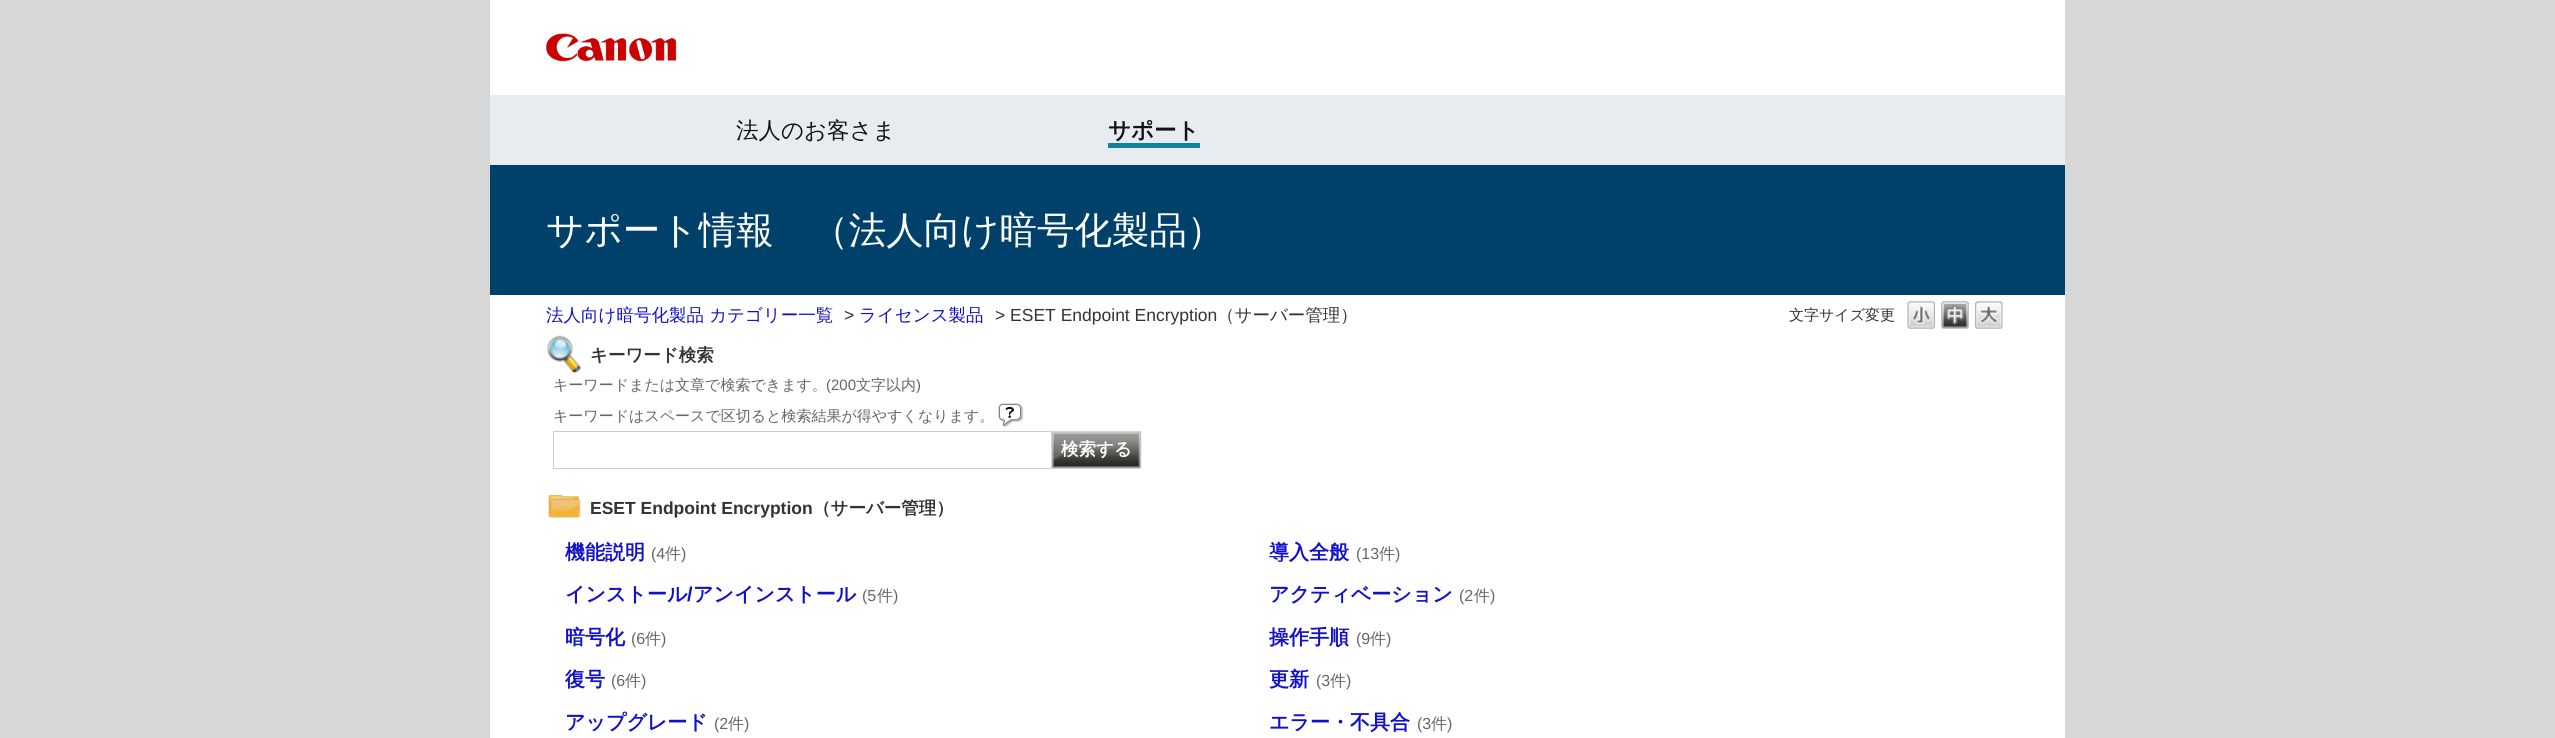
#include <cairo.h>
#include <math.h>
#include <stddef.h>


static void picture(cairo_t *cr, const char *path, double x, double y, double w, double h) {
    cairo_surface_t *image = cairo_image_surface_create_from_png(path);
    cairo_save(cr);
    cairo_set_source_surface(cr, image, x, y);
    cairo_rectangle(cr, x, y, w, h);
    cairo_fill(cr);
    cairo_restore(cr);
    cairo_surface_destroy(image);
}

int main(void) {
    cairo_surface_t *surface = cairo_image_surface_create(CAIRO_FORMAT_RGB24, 2555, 738);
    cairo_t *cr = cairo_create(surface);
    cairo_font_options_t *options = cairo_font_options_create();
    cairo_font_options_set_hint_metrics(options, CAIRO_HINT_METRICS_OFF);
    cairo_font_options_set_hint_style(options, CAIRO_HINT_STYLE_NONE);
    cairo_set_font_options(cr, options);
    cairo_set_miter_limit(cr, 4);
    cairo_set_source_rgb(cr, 0.843, 0.843, 0.843);
    cairo_paint(cr);
    cairo_set_source_rgb(cr, 1, 1, 1);
    cairo_rectangle(cr, 490, 295, 1575, 443);
    cairo_fill(cr);
    cairo_rectangle(cr, 490, 0, 1575, 95);
    cairo_fill(cr);
    picture(cr, "img1.png", 546, 33, 131, 29);
    cairo_set_source_rgb(cr, 0.902, 0.925, 0.937);
    cairo_rectangle(cr, 490, 95, 1575, 70);
    cairo_fill(cr);
    cairo_select_font_face(cr, "WenQuanYi Zen Hei Medium", CAIRO_FONT_SLANT_NORMAL, CAIRO_FONT_WEIGHT_NORMAL);
    cairo_set_font_size(cr, 22.5);
    cairo_set_source_rgb(cr, 0.078, 0.078, 0.078);
    cairo_move_to(cr, 736, 138);
    cairo_show_text(cr, "法人のお客さま");
    cairo_select_font_face(cr, "WenQuanYi Zen Hei", CAIRO_FONT_SLANT_NORMAL, CAIRO_FONT_WEIGHT_BOLD);
    cairo_move_to(cr, 1108, 138);
    cairo_show_text(cr, "サポート");
    cairo_set_source_rgb(cr, 0.078, 0.51, 0.6);
    cairo_rectangle(cr, 1108, 143, 92, 5);
    cairo_fill(cr);
    cairo_set_source_rgb(cr, 0, 0.255, 0.42);
    cairo_rectangle(cr, 490, 165, 1575, 130);
    cairo_fill(cr);
    cairo_select_font_face(cr, "WenQuanYi Zen Hei Medium", CAIRO_FONT_SLANT_NORMAL, CAIRO_FONT_WEIGHT_NORMAL);
    cairo_set_font_size(cr, 37.5);
    cairo_set_source_rgb(cr, 1, 1, 1);
    cairo_move_to(cr, 546, 243);
    cairo_show_text(cr, "サポート情報　（法人向け暗号化製品）");
    cairo_set_font_size(cr, 17.5);
    cairo_set_source_rgb(cr, 0.067, 0.067, 0.8);
    cairo_move_to(cr, 546, 321);
    cairo_show_text(cr, "法人向け暗号化製品 カテゴリー一覧");
    cairo_select_font_face(cr, "Liberation Sans", CAIRO_FONT_SLANT_NORMAL, CAIRO_FONT_WEIGHT_NORMAL);
    cairo_set_source_rgb(cr, 0.2, 0.2, 0.2);
    cairo_move_to(cr, 844, 321);
    cairo_show_text(cr, ">");
    cairo_select_font_face(cr, "WenQuanYi Zen Hei Medium", CAIRO_FONT_SLANT_NORMAL, CAIRO_FONT_WEIGHT_NORMAL);
    cairo_set_source_rgb(cr, 0.067, 0.067, 0.8);
    cairo_move_to(cr, 859, 321);
    cairo_show_text(cr, "ライセンス製品");
    cairo_select_font_face(cr, "Liberation Sans", CAIRO_FONT_SLANT_NORMAL, CAIRO_FONT_WEIGHT_NORMAL);
    cairo_set_source_rgb(cr, 0.2, 0.2, 0.2);
    cairo_move_to(cr, 995, 321);
    cairo_show_text(cr, "> ESET Endpoint Encryption");
    cairo_select_font_face(cr, "WenQuanYi Zen Hei Medium", CAIRO_FONT_SLANT_NORMAL, CAIRO_FONT_WEIGHT_NORMAL);
    cairo_move_to(cr, 1217, 321);
    cairo_show_text(cr, "（サーバー管理）");
    cairo_set_font_size(cr, 15);
    cairo_move_to(cr, 1789, 320);
    cairo_show_text(cr, "文字サイズ変更");
    picture(cr, "img2.png", 1907, 301, 28, 28);
    picture(cr, "img3.png", 1941, 301, 28, 28);
    picture(cr, "img4.png", 1975, 301, 28, 28);
    picture(cr, "img5.png", 547, 335, 35, 38);
    cairo_select_font_face(cr, "WenQuanYi Zen Hei", CAIRO_FONT_SLANT_NORMAL, CAIRO_FONT_WEIGHT_BOLD);
    cairo_set_font_size(cr, 17.5);
    cairo_move_to(cr, 590, 361);
    cairo_show_text(cr, "キーワード検索");
    cairo_select_font_face(cr, "WenQuanYi Zen Hei Medium", CAIRO_FONT_SLANT_NORMAL, CAIRO_FONT_WEIGHT_NORMAL);
    cairo_set_font_size(cr, 15);
    cairo_set_source_rgb(cr, 0.4, 0.4, 0.4);
    cairo_move_to(cr, 553, 390);
    cairo_show_text(cr, "キーワードまたは文章で検索できます。");
    cairo_select_font_face(cr, "Liberation Sans", CAIRO_FONT_SLANT_NORMAL, CAIRO_FONT_WEIGHT_NORMAL);
    cairo_move_to(cr, 826, 390);
    cairo_show_text(cr, "(200");
    cairo_select_font_face(cr, "WenQuanYi Zen Hei Medium", CAIRO_FONT_SLANT_NORMAL, CAIRO_FONT_WEIGHT_NORMAL);
    cairo_move_to(cr, 856, 390);
    cairo_show_text(cr, "文字以内");
    cairo_select_font_face(cr, "Liberation Sans", CAIRO_FONT_SLANT_NORMAL, CAIRO_FONT_WEIGHT_NORMAL);
    cairo_move_to(cr, 916, 390);
    cairo_show_text(cr, ")");
    cairo_select_font_face(cr, "WenQuanYi Zen Hei Medium", CAIRO_FONT_SLANT_NORMAL, CAIRO_FONT_WEIGHT_NORMAL);
    cairo_move_to(cr, 553, 421);
    cairo_show_text(cr, "キーワードはスペースで区切ると検索結果が得やすくなります。");
    picture(cr, "img6.png", 998, 403, 26, 25);
    cairo_set_source_rgb(cr, 0.8, 0.8, 0.8);
    cairo_rectangle(cr, 553, 431, 498, 1);
    cairo_fill(cr);
    cairo_rectangle(cr, 553, 468, 498, 1);
    cairo_fill(cr);
    cairo_rectangle(cr, 553, 431, 1, 38);
    cairo_fill(cr);
    picture(cr, "img7.png", 1051, 431, 91, 38);
    cairo_select_font_face(cr, "WenQuanYi Zen Hei", CAIRO_FONT_SLANT_NORMAL, CAIRO_FONT_WEIGHT_BOLD);
    cairo_set_font_size(cr, 17.5);
    cairo_set_source_rgb(cr, 1, 1, 1);
    cairo_move_to(cr, 1061, 455);
    cairo_show_text(cr, "検索する");
    picture(cr, "img8.png", 548, 494, 33, 24);
    cairo_select_font_face(cr, "Liberation Sans", CAIRO_FONT_SLANT_NORMAL, CAIRO_FONT_WEIGHT_BOLD);
    cairo_set_source_rgb(cr, 0.2, 0.2, 0.2);
    cairo_move_to(cr, 590, 514);
    cairo_show_text(cr, "ESET Endpoint Encryption");
    cairo_select_font_face(cr, "WenQuanYi Zen Hei", CAIRO_FONT_SLANT_NORMAL, CAIRO_FONT_WEIGHT_BOLD);
    cairo_move_to(cr, 813, 514);
    cairo_show_text(cr, "（サーバー管理）");
    cairo_set_font_size(cr, 20);
    cairo_set_source_rgb(cr, 0.067, 0.067, 0.8);
    cairo_move_to(cr, 565, 559);
    cairo_show_text(cr, "機能説明");
    cairo_select_font_face(cr, "Liberation Sans", CAIRO_FONT_SLANT_NORMAL, CAIRO_FONT_WEIGHT_NORMAL);
    cairo_set_font_size(cr, 16);
    cairo_set_source_rgb(cr, 0.4, 0.4, 0.4);
    cairo_move_to(cr, 651, 559);
    cairo_show_text(cr, "(4");
    cairo_select_font_face(cr, "WenQuanYi Zen Hei Medium", CAIRO_FONT_SLANT_NORMAL, CAIRO_FONT_WEIGHT_NORMAL);
    cairo_move_to(cr, 665, 559);
    cairo_show_text(cr, "件");
    cairo_select_font_face(cr, "Liberation Sans", CAIRO_FONT_SLANT_NORMAL, CAIRO_FONT_WEIGHT_NORMAL);
    cairo_move_to(cr, 681, 559);
    cairo_show_text(cr, ")");
    cairo_select_font_face(cr, "WenQuanYi Zen Hei", CAIRO_FONT_SLANT_NORMAL, CAIRO_FONT_WEIGHT_BOLD);
    cairo_set_font_size(cr, 20);
    cairo_set_source_rgb(cr, 0.067, 0.067, 0.8);
    cairo_move_to(cr, 1269, 559);
    cairo_show_text(cr, "導入全般");
    cairo_select_font_face(cr, "Liberation Sans", CAIRO_FONT_SLANT_NORMAL, CAIRO_FONT_WEIGHT_NORMAL);
    cairo_set_font_size(cr, 16);
    cairo_set_source_rgb(cr, 0.4, 0.4, 0.4);
    cairo_move_to(cr, 1356, 559);
    cairo_show_text(cr, "(13");
    cairo_select_font_face(cr, "WenQuanYi Zen Hei Medium", CAIRO_FONT_SLANT_NORMAL, CAIRO_FONT_WEIGHT_NORMAL);
    cairo_move_to(cr, 1379, 559);
    cairo_show_text(cr, "件");
    cairo_select_font_face(cr, "Liberation Sans", CAIRO_FONT_SLANT_NORMAL, CAIRO_FONT_WEIGHT_NORMAL);
    cairo_move_to(cr, 1395, 559);
    cairo_show_text(cr, ")");
    cairo_select_font_face(cr, "WenQuanYi Zen Hei", CAIRO_FONT_SLANT_NORMAL, CAIRO_FONT_WEIGHT_BOLD);
    cairo_set_font_size(cr, 20);
    cairo_set_source_rgb(cr, 0.067, 0.067, 0.8);
    cairo_move_to(cr, 565, 601);
    cairo_show_text(cr, "インストール");
    cairo_select_font_face(cr, "Liberation Sans", CAIRO_FONT_SLANT_NORMAL, CAIRO_FONT_WEIGHT_BOLD);
    cairo_move_to(cr, 687, 601);
    cairo_show_text(cr, "/");
    cairo_select_font_face(cr, "WenQuanYi Zen Hei", CAIRO_FONT_SLANT_NORMAL, CAIRO_FONT_WEIGHT_BOLD);
    cairo_move_to(cr, 693, 601);
    cairo_show_text(cr, "アンインストール");
    cairo_select_font_face(cr, "Liberation Sans", CAIRO_FONT_SLANT_NORMAL, CAIRO_FONT_WEIGHT_NORMAL);
    cairo_set_font_size(cr, 16);
    cairo_set_source_rgb(cr, 0.4, 0.4, 0.4);
    cairo_move_to(cr, 862, 601);
    cairo_show_text(cr, "(5");
    cairo_select_font_face(cr, "WenQuanYi Zen Hei Medium", CAIRO_FONT_SLANT_NORMAL, CAIRO_FONT_WEIGHT_NORMAL);
    cairo_move_to(cr, 877, 601);
    cairo_show_text(cr, "件");
    cairo_select_font_face(cr, "Liberation Sans", CAIRO_FONT_SLANT_NORMAL, CAIRO_FONT_WEIGHT_NORMAL);
    cairo_move_to(cr, 893, 601);
    cairo_show_text(cr, ")");
    cairo_select_font_face(cr, "WenQuanYi Zen Hei", CAIRO_FONT_SLANT_NORMAL, CAIRO_FONT_WEIGHT_BOLD);
    cairo_set_font_size(cr, 20);
    cairo_set_source_rgb(cr, 0.067, 0.067, 0.8);
    cairo_move_to(cr, 1269, 601);
    cairo_show_text(cr, "アクティベーション");
    cairo_select_font_face(cr, "Liberation Sans", CAIRO_FONT_SLANT_NORMAL, CAIRO_FONT_WEIGHT_NORMAL);
    cairo_set_font_size(cr, 16);
    cairo_set_source_rgb(cr, 0.4, 0.4, 0.4);
    cairo_move_to(cr, 1459, 601);
    cairo_show_text(cr, "(2");
    cairo_select_font_face(cr, "WenQuanYi Zen Hei Medium", CAIRO_FONT_SLANT_NORMAL, CAIRO_FONT_WEIGHT_NORMAL);
    cairo_move_to(cr, 1474, 601);
    cairo_show_text(cr, "件");
    cairo_select_font_face(cr, "Liberation Sans", CAIRO_FONT_SLANT_NORMAL, CAIRO_FONT_WEIGHT_NORMAL);
    cairo_move_to(cr, 1490, 601);
    cairo_show_text(cr, ")");
    cairo_select_font_face(cr, "WenQuanYi Zen Hei", CAIRO_FONT_SLANT_NORMAL, CAIRO_FONT_WEIGHT_BOLD);
    cairo_set_font_size(cr, 20);
    cairo_set_source_rgb(cr, 0.067, 0.067, 0.8);
    cairo_move_to(cr, 565, 644);
    cairo_show_text(cr, "暗号化");
    cairo_select_font_face(cr, "Liberation Sans", CAIRO_FONT_SLANT_NORMAL, CAIRO_FONT_WEIGHT_NORMAL);
    cairo_set_font_size(cr, 16);
    cairo_set_source_rgb(cr, 0.4, 0.4, 0.4);
    cairo_move_to(cr, 631, 644);
    cairo_show_text(cr, "(6");
    cairo_select_font_face(cr, "WenQuanYi Zen Hei Medium", CAIRO_FONT_SLANT_NORMAL, CAIRO_FONT_WEIGHT_NORMAL);
    cairo_move_to(cr, 645, 644);
    cairo_show_text(cr, "件");
    cairo_select_font_face(cr, "Liberation Sans", CAIRO_FONT_SLANT_NORMAL, CAIRO_FONT_WEIGHT_NORMAL);
    cairo_move_to(cr, 661, 644);
    cairo_show_text(cr, ")");
    cairo_select_font_face(cr, "WenQuanYi Zen Hei", CAIRO_FONT_SLANT_NORMAL, CAIRO_FONT_WEIGHT_BOLD);
    cairo_set_font_size(cr, 20);
    cairo_set_source_rgb(cr, 0.067, 0.067, 0.8);
    cairo_move_to(cr, 1269, 644);
    cairo_show_text(cr, "操作手順");
    cairo_select_font_face(cr, "Liberation Sans", CAIRO_FONT_SLANT_NORMAL, CAIRO_FONT_WEIGHT_NORMAL);
    cairo_set_font_size(cr, 16);
    cairo_set_source_rgb(cr, 0.4, 0.4, 0.4);
    cairo_move_to(cr, 1356, 644);
    cairo_show_text(cr, "(9");
    cairo_select_font_face(cr, "WenQuanYi Zen Hei Medium", CAIRO_FONT_SLANT_NORMAL, CAIRO_FONT_WEIGHT_NORMAL);
    cairo_move_to(cr, 1370, 644);
    cairo_show_text(cr, "件");
    cairo_select_font_face(cr, "Liberation Sans", CAIRO_FONT_SLANT_NORMAL, CAIRO_FONT_WEIGHT_NORMAL);
    cairo_move_to(cr, 1386, 644);
    cairo_show_text(cr, ")");
    cairo_select_font_face(cr, "WenQuanYi Zen Hei", CAIRO_FONT_SLANT_NORMAL, CAIRO_FONT_WEIGHT_BOLD);
    cairo_set_font_size(cr, 20);
    cairo_set_source_rgb(cr, 0.067, 0.067, 0.8);
    cairo_move_to(cr, 565, 686);
    cairo_show_text(cr, "復号");
    cairo_select_font_face(cr, "Liberation Sans", CAIRO_FONT_SLANT_NORMAL, CAIRO_FONT_WEIGHT_NORMAL);
    cairo_set_font_size(cr, 16);
    cairo_set_source_rgb(cr, 0.4, 0.4, 0.4);
    cairo_move_to(cr, 611, 686);
    cairo_show_text(cr, "(6");
    cairo_select_font_face(cr, "WenQuanYi Zen Hei Medium", CAIRO_FONT_SLANT_NORMAL, CAIRO_FONT_WEIGHT_NORMAL);
    cairo_move_to(cr, 625, 686);
    cairo_show_text(cr, "件");
    cairo_select_font_face(cr, "Liberation Sans", CAIRO_FONT_SLANT_NORMAL, CAIRO_FONT_WEIGHT_NORMAL);
    cairo_move_to(cr, 641, 686);
    cairo_show_text(cr, ")");
    cairo_select_font_face(cr, "WenQuanYi Zen Hei", CAIRO_FONT_SLANT_NORMAL, CAIRO_FONT_WEIGHT_BOLD);
    cairo_set_font_size(cr, 20);
    cairo_set_source_rgb(cr, 0.067, 0.067, 0.8);
    cairo_move_to(cr, 1269, 686);
    cairo_show_text(cr, "更新");
    cairo_select_font_face(cr, "Liberation Sans", CAIRO_FONT_SLANT_NORMAL, CAIRO_FONT_WEIGHT_NORMAL);
    cairo_set_font_size(cr, 16);
    cairo_set_source_rgb(cr, 0.4, 0.4, 0.4);
    cairo_move_to(cr, 1316, 686);
    cairo_show_text(cr, "(3");
    cairo_select_font_face(cr, "WenQuanYi Zen Hei Medium", CAIRO_FONT_SLANT_NORMAL, CAIRO_FONT_WEIGHT_NORMAL);
    cairo_move_to(cr, 1330, 686);
    cairo_show_text(cr, "件");
    cairo_select_font_face(cr, "Liberation Sans", CAIRO_FONT_SLANT_NORMAL, CAIRO_FONT_WEIGHT_NORMAL);
    cairo_move_to(cr, 1346, 686);
    cairo_show_text(cr, ")");
    cairo_select_font_face(cr, "WenQuanYi Zen Hei", CAIRO_FONT_SLANT_NORMAL, CAIRO_FONT_WEIGHT_BOLD);
    cairo_set_font_size(cr, 20);
    cairo_set_source_rgb(cr, 0.067, 0.067, 0.8);
    cairo_move_to(cr, 565, 729);
    cairo_show_text(cr, "アップグレード");
    cairo_select_font_face(cr, "Liberation Sans", CAIRO_FONT_SLANT_NORMAL, CAIRO_FONT_WEIGHT_NORMAL);
    cairo_set_font_size(cr, 16);
    cairo_set_source_rgb(cr, 0.4, 0.4, 0.4);
    cairo_move_to(cr, 714, 729);
    cairo_show_text(cr, "(2");
    cairo_select_font_face(cr, "WenQuanYi Zen Hei Medium", CAIRO_FONT_SLANT_NORMAL, CAIRO_FONT_WEIGHT_NORMAL);
    cairo_move_to(cr, 728, 729);
    cairo_show_text(cr, "件");
    cairo_select_font_face(cr, "Liberation Sans", CAIRO_FONT_SLANT_NORMAL, CAIRO_FONT_WEIGHT_NORMAL);
    cairo_move_to(cr, 744, 729);
    cairo_show_text(cr, ")");
    cairo_select_font_face(cr, "WenQuanYi Zen Hei", CAIRO_FONT_SLANT_NORMAL, CAIRO_FONT_WEIGHT_BOLD);
    cairo_set_font_size(cr, 20);
    cairo_set_source_rgb(cr, 0.067, 0.067, 0.8);
    cairo_move_to(cr, 1269, 729);
    cairo_show_text(cr, "エラー・不具合");
    cairo_select_font_face(cr, "Liberation Sans", CAIRO_FONT_SLANT_NORMAL, CAIRO_FONT_WEIGHT_NORMAL);
    cairo_set_font_size(cr, 16);
    cairo_set_source_rgb(cr, 0.4, 0.4, 0.4);
    cairo_move_to(cr, 1417, 729);
    cairo_show_text(cr, "(3");
    cairo_select_font_face(cr, "WenQuanYi Zen Hei Medium", CAIRO_FONT_SLANT_NORMAL, CAIRO_FONT_WEIGHT_NORMAL);
    cairo_move_to(cr, 1431, 729);
    cairo_show_text(cr, "件");
    cairo_select_font_face(cr, "Liberation Sans", CAIRO_FONT_SLANT_NORMAL, CAIRO_FONT_WEIGHT_NORMAL);
    cairo_move_to(cr, 1447, 729);
    cairo_show_text(cr, ")");
    cairo_surface_write_to_png(surface, "page.png");
    cairo_font_options_destroy(options);
    cairo_destroy(cr);
    cairo_surface_destroy(surface);
    return 0;
}
